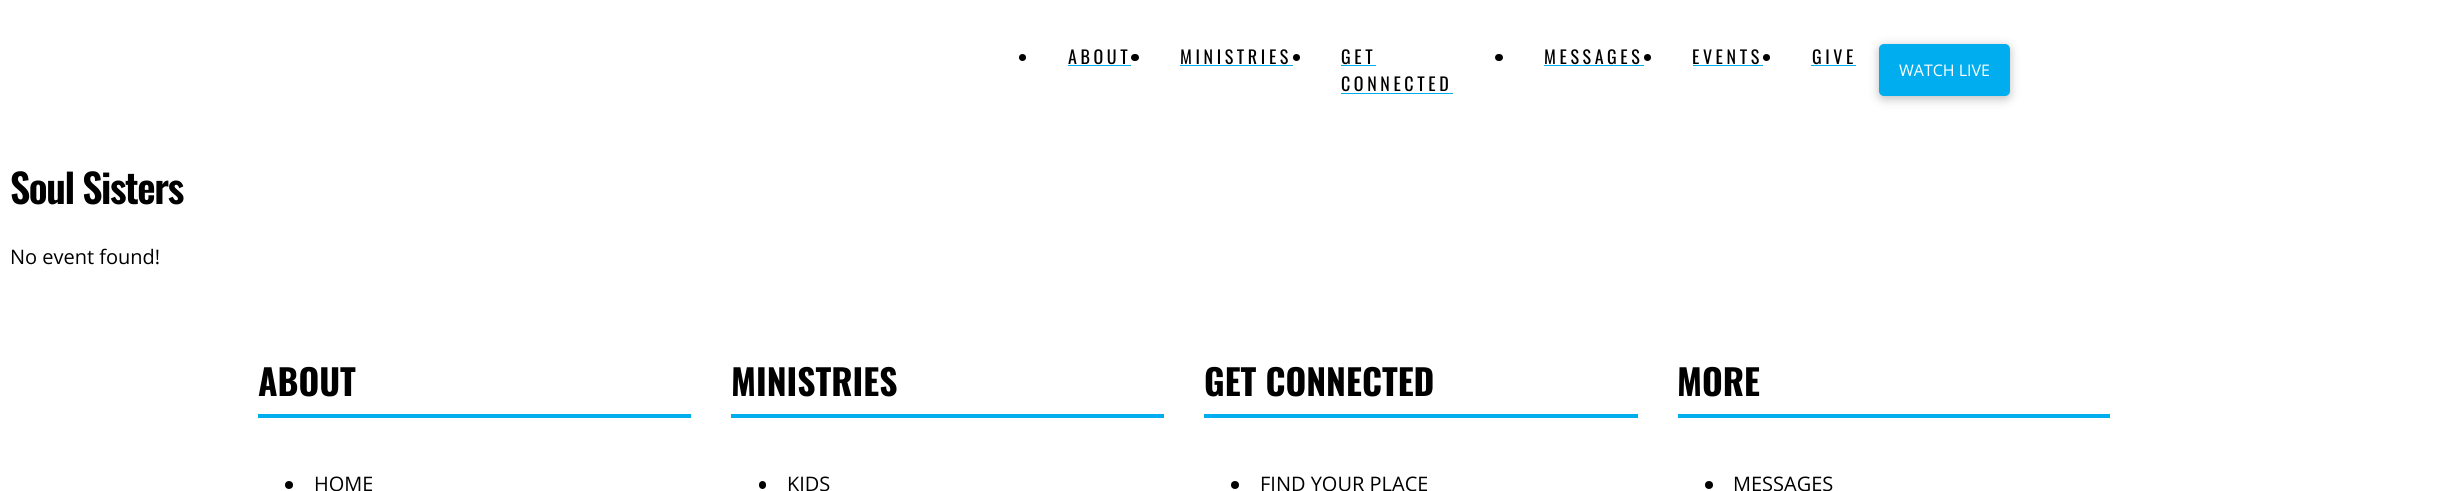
#include <cairo.h>
#include <math.h>
#include <stddef.h>


static void spaced_text(cairo_t *cr, double x, double y, const char *s, double letter, double word) {
    cairo_move_to(cr, x, y);
    while (*s) {
        char ch[5] = {0};
        int n = 0;
        do ch[n++] = *s++; while ((*s & 0xC0) == 0x80);
        cairo_show_text(cr, ch);
        cairo_rel_move_to(cr, letter + word * (*ch == ' '), 0);
    }
}

static void round_rect(cairo_t *cr, double x, double y, double w, double h, double r) {
    cairo_new_sub_path(cr);
    cairo_arc(cr, x + w - r, y + h - r, r, 0, M_PI / 2);
    cairo_arc(cr, x + r, y + h - r, r, M_PI / 2, M_PI);
    cairo_arc(cr, x + r, y + r, r, M_PI, 1.5 * M_PI);
    cairo_arc(cr, x + w - r, y + r, r, 1.5 * M_PI, 2 * M_PI);
    cairo_close_path(cr);
}

static void shadow(cairo_t *cr, double x, double y, double w, double h, double r, double blur, double alpha) {
    cairo_push_group_with_content(cr, CAIRO_CONTENT_ALPHA);
    cairo_set_operator(cr, CAIRO_OPERATOR_SOURCE);
    for (int i = 15; i >= -15 && fmin(w, h) + blur * i / 3 > 0; i -= 2) {
        double e = blur * i / 6;
        cairo_set_source_rgba(cr, 0, 0, 0, alpha * erfc((i - 1) / 8.5) / 2);
        round_rect(cr, x - e, y - e, w + 2 * e, h + 2 * e, fmax(0, fmin(r + e + blur * .6, fmin(w, h) / 2 + e)));
        cairo_fill(cr);
    }
    cairo_pattern_t *soft = cairo_pop_group(cr);
    cairo_mask(cr, soft);
    cairo_pattern_destroy(soft);
}

int main(void) {
    cairo_surface_t *surface = cairo_image_surface_create(CAIRO_FORMAT_RGB24, 2446, 491);
    cairo_t *cr = cairo_create(surface);
    cairo_font_options_t *options = cairo_font_options_create();
    cairo_font_options_set_hint_metrics(options, CAIRO_HINT_METRICS_OFF);
    cairo_font_options_set_hint_style(options, CAIRO_HINT_STYLE_NONE);
    cairo_set_font_options(cr, options);
    cairo_set_miter_limit(cr, 4);
    cairo_set_source_rgb(cr, 1, 1, 1);
    cairo_paint(cr);
    cairo_set_source_rgb(cr, 0, 0, 0);
    cairo_arc(cr, 1022.5, 57.5, 3.5, 0, 2 * M_PI);
    cairo_fill(cr);
    cairo_select_font_face(cr, "Oswald", CAIRO_FONT_SLANT_NORMAL, CAIRO_FONT_WEIGHT_NORMAL);
    cairo_set_font_size(cr, 18);
    spaced_text(cr, 1068, 64, "ABOUT", 3.6, 0);
    cairo_set_source_rgb(cr, 0, 0.678, 0.933);
    cairo_rectangle(cr, 1068, 65, 63, 1);
    cairo_fill(cr);
    cairo_set_source_rgb(cr, 0, 0, 0);
    round_rect(cr, 1131, 54, 8, 7, 3.5);
    cairo_fill(cr);
    spaced_text(cr, 1180, 64, "MINISTRIES", 3.6, 0);
    cairo_set_source_rgb(cr, 0, 0.678, 0.933);
    cairo_rectangle(cr, 1180, 65, 113, 1);
    cairo_fill(cr);
    cairo_set_source_rgb(cr, 0, 0, 0);
    cairo_arc(cr, 1296.5, 57.5, 3.5, 0, 2 * M_PI);
    cairo_fill(cr);
    spaced_text(cr, 1341, 64, "GET", 3.6, 0);
    cairo_set_source_rgb(cr, 0, 0.678, 0.933);
    cairo_rectangle(cr, 1341, 65, 35, 1);
    cairo_fill(cr);
    cairo_set_source_rgb(cr, 0, 0, 0);
    spaced_text(cr, 1341, 91, "CONNECTED", 3.6, 0);
    cairo_set_source_rgb(cr, 0, 0.678, 0.933);
    cairo_rectangle(cr, 1341, 93, 112, 1);
    cairo_fill(cr);
    cairo_set_source_rgb(cr, 0, 0, 0);
    round_rect(cr, 1495, 54, 8, 7, 3.5);
    cairo_fill(cr);
    spaced_text(cr, 1544, 64, "MESSAGES", 3.6, 0);
    cairo_set_source_rgb(cr, 0, 0.678, 0.933);
    cairo_rectangle(cr, 1544, 65, 100, 1);
    cairo_fill(cr);
    cairo_set_source_rgb(cr, 0, 0, 0);
    cairo_arc(cr, 1647.5, 57.5, 3.5, 0, 2 * M_PI);
    cairo_fill(cr);
    spaced_text(cr, 1692, 64, "EVENTS", 3.6, 0);
    cairo_set_source_rgb(cr, 0, 0.678, 0.933);
    cairo_rectangle(cr, 1693, 65, 70, 1);
    cairo_fill(cr);
    cairo_set_source_rgb(cr, 0, 0, 0);
    cairo_arc(cr, 1766.5, 57.5, 3.5, 0, 2 * M_PI);
    cairo_fill(cr);
    spaced_text(cr, 1812, 64, "GIVE", 3.6, 0);
    cairo_set_source_rgb(cr, 0, 0.678, 0.933);
    cairo_rectangle(cr, 1811, 65, 45, 1);
    cairo_fill(cr);
    cairo_set_source_rgb(cr, 0, 0, 0);
    shadow(cr, 1879, 46, 131, 53, 5, 5, 0.25);
    cairo_set_source_rgb(cr, 0, 0.678, 0.933);
    round_rect(cr, 1879, 44, 131, 52, 5);
    cairo_fill(cr);
    cairo_select_font_face(cr, "Open Sans", CAIRO_FONT_SLANT_NORMAL, CAIRO_FONT_WEIGHT_NORMAL);
    cairo_set_font_size(cr, 16);
    cairo_set_source_rgb(cr, 1, 1, 1);
    cairo_move_to(cr, 1899, 76);
    cairo_show_text(cr, "WATCH LIVE");
    cairo_select_font_face(cr, "Oswald SemiBold", CAIRO_FONT_SLANT_NORMAL, CAIRO_FONT_WEIGHT_NORMAL);
    cairo_set_font_size(cr, 40);
    cairo_set_source_rgb(cr, 0, 0, 0);
    spaced_text(cr, 10, 204, "Soul Sisters", -1.4, 0);
    cairo_select_font_face(cr, "Open Sans", CAIRO_FONT_SLANT_NORMAL, CAIRO_FONT_WEIGHT_NORMAL);
    cairo_set_font_size(cr, 20);
    cairo_move_to(cr, 10, 264);
    cairo_show_text(cr, "No event found!");
    cairo_select_font_face(cr, "Oswald", CAIRO_FONT_SLANT_NORMAL, CAIRO_FONT_WEIGHT_BOLD);
    cairo_set_font_size(cr, 35.5);
    cairo_move_to(cr, 258, 396);
    cairo_show_text(cr, "ABOUT");
    cairo_set_source_rgb(cr, 0, 0.678, 0.933);
    cairo_rectangle(cr, 258, 414, 433, 4);
    cairo_fill(cr);
    cairo_set_source_rgb(cr, 0, 0, 0);
    cairo_arc(cr, 289, 485, 4, 0, 2 * M_PI);
    cairo_fill(cr);
    cairo_select_font_face(cr, "Open Sans", CAIRO_FONT_SLANT_NORMAL, CAIRO_FONT_WEIGHT_NORMAL);
    cairo_set_font_size(cr, 20);
    cairo_move_to(cr, 314, 491);
    cairo_show_text(cr, "HOME");
    cairo_select_font_face(cr, "Oswald", CAIRO_FONT_SLANT_NORMAL, CAIRO_FONT_WEIGHT_BOLD);
    cairo_set_font_size(cr, 35.5);
    cairo_move_to(cr, 731, 396);
    cairo_show_text(cr, "MINISTRIES");
    cairo_set_source_rgb(cr, 0, 0.678, 0.933);
    cairo_rectangle(cr, 731, 414, 433, 4);
    cairo_fill(cr);
    cairo_set_source_rgb(cr, 0, 0, 0);
    round_rect(cr, 759, 481, 7, 8, 3.5);
    cairo_fill(cr);
    cairo_select_font_face(cr, "Open Sans", CAIRO_FONT_SLANT_NORMAL, CAIRO_FONT_WEIGHT_NORMAL);
    cairo_set_font_size(cr, 20);
    cairo_move_to(cr, 787, 491);
    cairo_show_text(cr, "KIDS");
    cairo_select_font_face(cr, "Oswald", CAIRO_FONT_SLANT_NORMAL, CAIRO_FONT_WEIGHT_BOLD);
    cairo_set_font_size(cr, 35.5);
    cairo_move_to(cr, 1204, 396);
    cairo_show_text(cr, "GET CONNECTED");
    cairo_set_source_rgb(cr, 0, 0.678, 0.933);
    cairo_rectangle(cr, 1204, 414, 434, 4);
    cairo_fill(cr);
    cairo_set_source_rgb(cr, 0, 0, 0);
    cairo_arc(cr, 1235, 485, 4, 0, 2 * M_PI);
    cairo_fill(cr);
    cairo_select_font_face(cr, "Open Sans", CAIRO_FONT_SLANT_NORMAL, CAIRO_FONT_WEIGHT_NORMAL);
    cairo_set_font_size(cr, 20);
    cairo_move_to(cr, 1260, 491);
    cairo_show_text(cr, "FIND YOUR PLACE");
    cairo_select_font_face(cr, "Oswald", CAIRO_FONT_SLANT_NORMAL, CAIRO_FONT_WEIGHT_BOLD);
    cairo_set_font_size(cr, 35.5);
    cairo_move_to(cr, 1677, 396);
    cairo_show_text(cr, "MORE");
    cairo_set_source_rgb(cr, 0, 0.678, 0.933);
    cairo_rectangle(cr, 1678, 414, 432, 4);
    cairo_fill(cr);
    cairo_set_source_rgb(cr, 0, 0, 0);
    cairo_arc(cr, 1709, 485, 4, 0, 2 * M_PI);
    cairo_fill(cr);
    cairo_select_font_face(cr, "Open Sans", CAIRO_FONT_SLANT_NORMAL, CAIRO_FONT_WEIGHT_NORMAL);
    cairo_set_font_size(cr, 20);
    cairo_move_to(cr, 1733, 491);
    cairo_show_text(cr, "MESSAGES");
    cairo_surface_write_to_png(surface, "page.png");
    cairo_font_options_destroy(options);
    cairo_destroy(cr);
    cairo_surface_destroy(surface);
    return 0;
}
